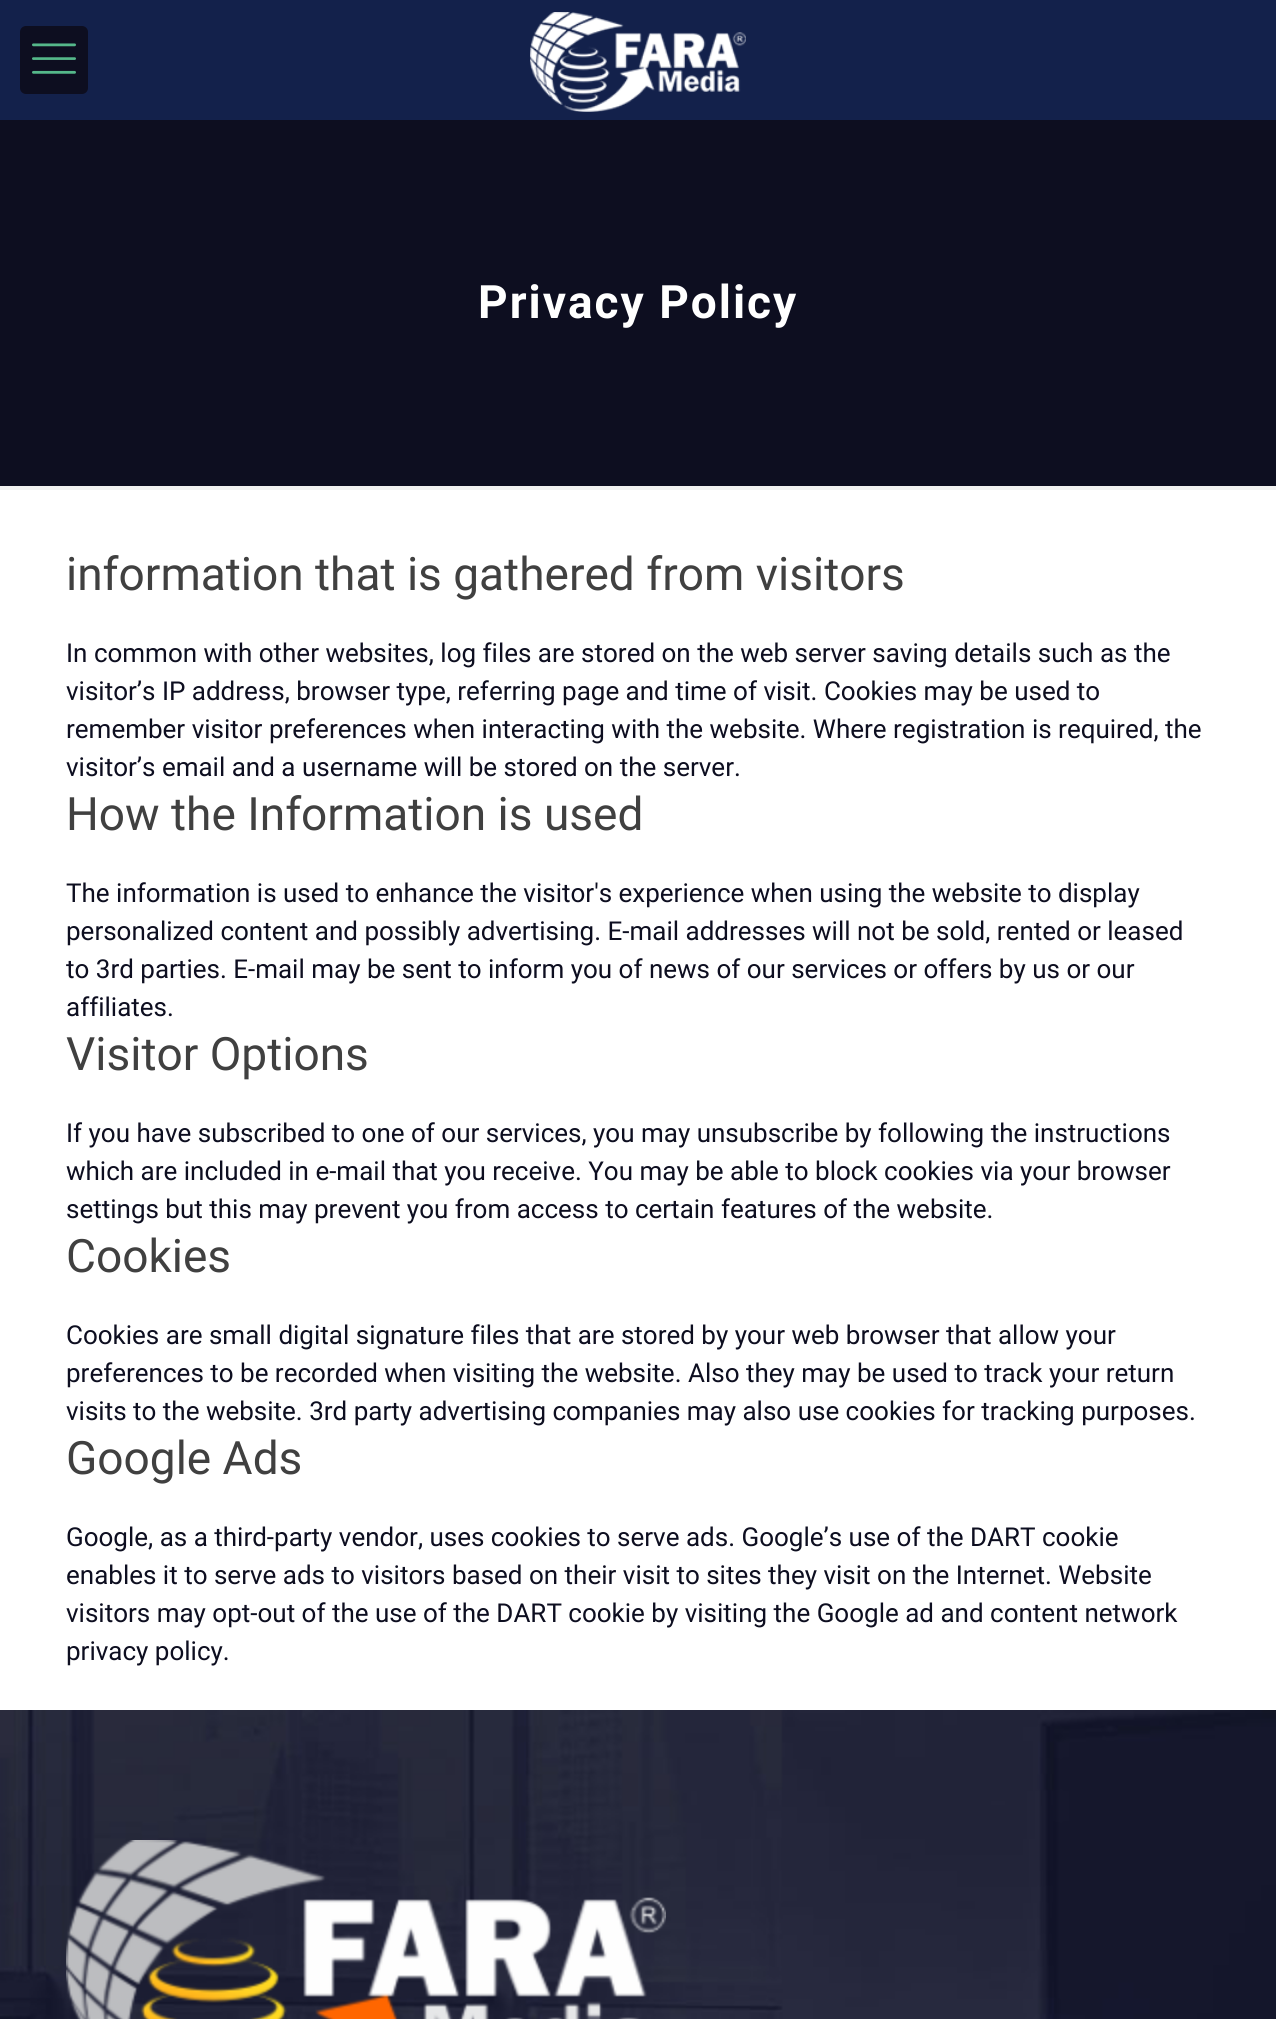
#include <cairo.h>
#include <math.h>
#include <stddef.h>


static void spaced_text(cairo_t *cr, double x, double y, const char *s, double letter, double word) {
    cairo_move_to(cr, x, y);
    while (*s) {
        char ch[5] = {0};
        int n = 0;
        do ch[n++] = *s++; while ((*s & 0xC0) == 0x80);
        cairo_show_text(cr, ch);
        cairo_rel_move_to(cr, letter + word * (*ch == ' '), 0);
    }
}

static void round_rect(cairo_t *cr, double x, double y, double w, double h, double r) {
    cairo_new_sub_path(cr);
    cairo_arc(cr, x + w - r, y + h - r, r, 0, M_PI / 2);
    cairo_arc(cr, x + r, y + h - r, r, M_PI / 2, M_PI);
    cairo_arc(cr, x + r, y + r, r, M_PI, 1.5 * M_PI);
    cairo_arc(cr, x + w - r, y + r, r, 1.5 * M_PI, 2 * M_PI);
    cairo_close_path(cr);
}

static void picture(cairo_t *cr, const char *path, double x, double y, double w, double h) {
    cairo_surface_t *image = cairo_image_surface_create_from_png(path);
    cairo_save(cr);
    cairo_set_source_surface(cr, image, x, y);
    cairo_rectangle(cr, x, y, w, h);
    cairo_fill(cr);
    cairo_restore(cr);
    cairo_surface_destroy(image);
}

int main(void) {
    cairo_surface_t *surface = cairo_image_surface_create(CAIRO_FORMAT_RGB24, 1276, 2019);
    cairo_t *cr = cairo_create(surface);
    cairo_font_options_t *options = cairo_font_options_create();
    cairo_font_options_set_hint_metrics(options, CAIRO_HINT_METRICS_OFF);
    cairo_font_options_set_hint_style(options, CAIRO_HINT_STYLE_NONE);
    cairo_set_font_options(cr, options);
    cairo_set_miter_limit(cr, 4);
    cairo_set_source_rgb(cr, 1, 1, 1);
    cairo_paint(cr);
    cairo_set_source_rgb(cr, 0.078, 0.129, 0.294);
    cairo_rectangle(cr, 0, 0, 1276, 120);
    cairo_fill(cr);
    cairo_set_source_rgb(cr, 0.051, 0.055, 0.125);
    round_rect(cr, 20, 26, 68, 68, 6);
    cairo_fill(cr);
    picture(cr, "img1.png", 32, 43, 44, 31);
    picture(cr, "img2.png", 530, 12, 216, 100);
    cairo_rectangle(cr, 0, 120, 1276, 366);
    cairo_fill(cr);
    cairo_select_font_face(cr, "Roboto", CAIRO_FONT_SLANT_NORMAL, CAIRO_FONT_WEIGHT_BOLD);
    cairo_set_font_size(cr, 46);
    cairo_set_source_rgb(cr, 1, 1, 1);
    spaced_text(cr, 478, 318, "Privacy Policy", 2, 0);
    cairo_set_source_rgb(cr, 0.949, 0.949, 0.949);
    cairo_rectangle(cr, 0, 486, 1276, 4);
    cairo_fill(cr);
    cairo_select_font_face(cr, "Roboto", CAIRO_FONT_SLANT_NORMAL, CAIRO_FONT_WEIGHT_NORMAL);
    cairo_set_source_rgb(cr, 0.251, 0.251, 0.251);
    cairo_move_to(cr, 66, 590);
    cairo_show_text(cr, "information that is gathered from visitors");
    cairo_set_font_size(cr, 26);
    cairo_set_source_rgb(cr, 0.051, 0.055, 0.125);
    cairo_move_to(cr, 66, 662);
    cairo_show_text(cr, "In common with other websites, log files are stored on the web server saving details such as the");
    cairo_move_to(cr, 66, 700);
    cairo_show_text(cr, "visitor’s IP address, browser type, referring page and time of visit. Cookies may be used to");
    cairo_move_to(cr, 66, 738);
    cairo_show_text(cr, "remember visitor preferences when interacting with the website. Where registration is required, the");
    cairo_move_to(cr, 66, 776);
    cairo_show_text(cr, "visitor’s email and a username will be stored on the server.");
    cairo_set_font_size(cr, 46);
    cairo_set_source_rgb(cr, 0.251, 0.251, 0.251);
    cairo_move_to(cr, 66, 830);
    cairo_show_text(cr, "How the Information is used");
    cairo_set_font_size(cr, 26);
    cairo_set_source_rgb(cr, 0.051, 0.055, 0.125);
    cairo_move_to(cr, 66, 902);
    cairo_show_text(cr, "The information is used to enhance the visitor's experience when using the website to display");
    cairo_move_to(cr, 66, 940);
    cairo_show_text(cr, "personalized content and possibly advertising. E-mail addresses will not be sold, rented or leased");
    cairo_move_to(cr, 66, 978);
    cairo_show_text(cr, "to 3rd parties. E-mail may be sent to inform you of news of our services or offers by us or our");
    cairo_move_to(cr, 66, 1016);
    cairo_show_text(cr, "affiliates.");
    cairo_set_font_size(cr, 46);
    cairo_set_source_rgb(cr, 0.251, 0.251, 0.251);
    cairo_move_to(cr, 66, 1070);
    cairo_show_text(cr, "Visitor Options");
    cairo_set_font_size(cr, 26);
    cairo_set_source_rgb(cr, 0.051, 0.055, 0.125);
    cairo_move_to(cr, 66, 1142);
    cairo_show_text(cr, "If you have subscribed to one of our services, you may unsubscribe by following the instructions");
    cairo_move_to(cr, 66, 1180);
    cairo_show_text(cr, "which are included in e-mail that you receive. You may be able to block cookies via your browser");
    cairo_move_to(cr, 66, 1218);
    cairo_show_text(cr, "settings but this may prevent you from access to certain features of the website.");
    cairo_set_font_size(cr, 46);
    cairo_set_source_rgb(cr, 0.251, 0.251, 0.251);
    cairo_move_to(cr, 66, 1272);
    cairo_show_text(cr, "Cookies");
    cairo_set_font_size(cr, 26);
    cairo_set_source_rgb(cr, 0.051, 0.055, 0.125);
    cairo_move_to(cr, 66, 1344);
    cairo_show_text(cr, "Cookies are small digital signature files that are stored by your web browser that allow your");
    cairo_move_to(cr, 66, 1382);
    cairo_show_text(cr, "preferences to be recorded when visiting the website. Also they may be used to track your return");
    cairo_move_to(cr, 66, 1420);
    cairo_show_text(cr, "visits to the website. 3rd party advertising companies may also use cookies for tracking purposes.");
    cairo_set_font_size(cr, 46);
    cairo_set_source_rgb(cr, 0.251, 0.251, 0.251);
    cairo_move_to(cr, 66, 1474);
    cairo_show_text(cr, "Google Ads");
    cairo_set_font_size(cr, 26);
    cairo_set_source_rgb(cr, 0.051, 0.055, 0.125);
    cairo_move_to(cr, 66, 1546);
    cairo_show_text(cr, "Google, as a third-party vendor, uses cookies to serve ads. Google’s use of the DART cookie");
    cairo_move_to(cr, 66, 1584);
    cairo_show_text(cr, "enables it to serve ads to visitors based on their visit to sites they visit on the Internet. Website");
    cairo_move_to(cr, 66, 1622);
    cairo_show_text(cr, "visitors may opt-out of the use of the DART cookie by visiting the Google ad and content network");
    cairo_move_to(cr, 66, 1660);
    cairo_show_text(cr, "privacy policy.");
    picture(cr, "img3.png", 0, 1710, 1276, 309);
    picture(cr, "img4.png", 66, 1840, 600, 179);
    cairo_surface_write_to_png(surface, "page.png");
    cairo_font_options_destroy(options);
    cairo_destroy(cr);
    cairo_surface_destroy(surface);
    return 0;
}
